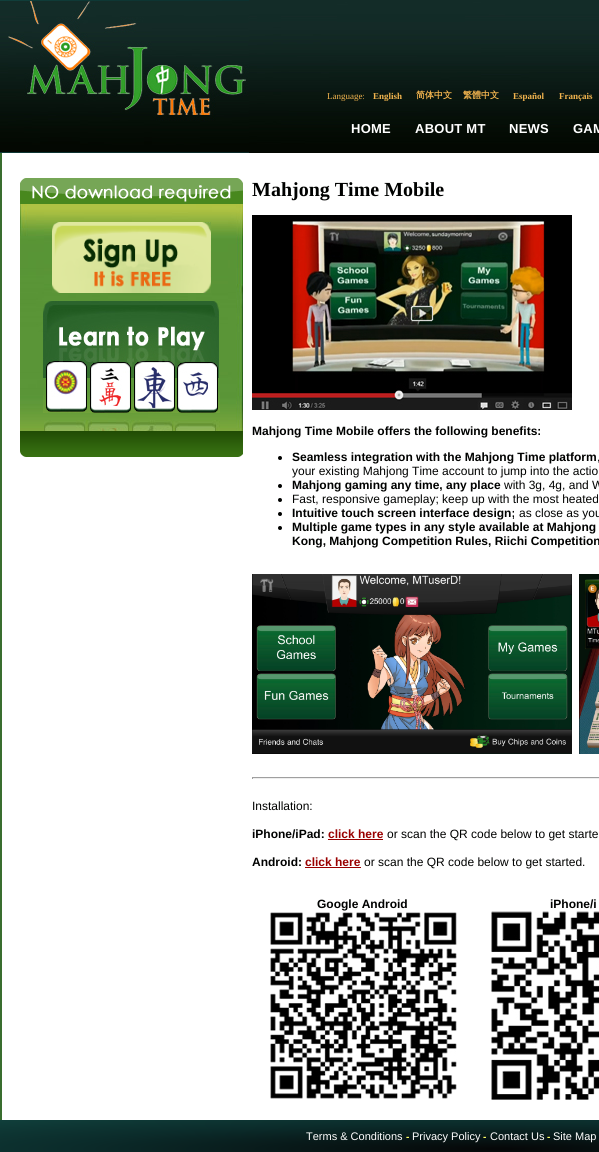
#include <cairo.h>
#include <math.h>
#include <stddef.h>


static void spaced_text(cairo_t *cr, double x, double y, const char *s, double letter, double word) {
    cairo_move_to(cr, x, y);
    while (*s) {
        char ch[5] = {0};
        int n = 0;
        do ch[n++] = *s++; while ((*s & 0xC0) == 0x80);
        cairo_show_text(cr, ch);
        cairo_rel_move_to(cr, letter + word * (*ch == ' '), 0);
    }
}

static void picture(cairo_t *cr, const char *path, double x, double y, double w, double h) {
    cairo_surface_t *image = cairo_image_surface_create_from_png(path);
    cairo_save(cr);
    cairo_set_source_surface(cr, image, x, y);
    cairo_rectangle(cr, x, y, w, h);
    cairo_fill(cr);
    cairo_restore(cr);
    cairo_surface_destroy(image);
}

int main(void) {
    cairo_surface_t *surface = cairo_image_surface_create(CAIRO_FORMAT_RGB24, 599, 1152);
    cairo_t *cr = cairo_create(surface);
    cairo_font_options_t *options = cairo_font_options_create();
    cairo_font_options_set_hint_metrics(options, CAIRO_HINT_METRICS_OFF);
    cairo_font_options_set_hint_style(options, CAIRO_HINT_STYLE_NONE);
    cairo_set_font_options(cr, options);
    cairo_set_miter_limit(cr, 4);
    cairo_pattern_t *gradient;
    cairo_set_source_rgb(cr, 1, 1, 1);
    cairo_paint(cr);
    gradient = cairo_pattern_create_radial(0, 0, 0, 0, 0, 1);
    cairo_pattern_set_matrix(gradient, &(cairo_matrix_t){1.0 / 424, 0, 0, 1.0 / 815, -1.0 * 300 / 424, -1.0 * 576 / 815});
    cairo_pattern_add_color_stop_rgba(gradient, 0, 0.02, 0.024, 0.027, 1);
    cairo_pattern_add_color_stop_rgba(gradient, 0.6, 0.043, 0.169, 0.165, 1);
    cairo_pattern_add_color_stop_rgba(gradient, 1, 0.063, 0.247, 0.231, 1);
    cairo_set_source(cr, gradient);
    cairo_pattern_destroy(gradient);
    cairo_rectangle(cr, 0, 0, 249, 153);
    cairo_fill(cr);
    picture(cr, "img1.png", 0, 1, 249, 151);
    picture(cr, "img2.png", 249, 0, 350, 153);
    cairo_select_font_face(cr, "Liberation Serif", CAIRO_FONT_SLANT_NORMAL, CAIRO_FONT_WEIGHT_NORMAL);
    cairo_set_font_size(cr, 9);
    cairo_set_source_rgb(cr, 0.957, 0.71, 0.31);
    cairo_move_to(cr, 327, 99);
    cairo_show_text(cr, "Language:");
    cairo_select_font_face(cr, "Liberation Serif", CAIRO_FONT_SLANT_NORMAL, CAIRO_FONT_WEIGHT_BOLD);
    cairo_move_to(cr, 373, 99);
    cairo_show_text(cr, "English");
    cairo_select_font_face(cr, "WenQuanYi Zen Hei", CAIRO_FONT_SLANT_NORMAL, CAIRO_FONT_WEIGHT_BOLD);
    cairo_move_to(cr, 416, 98);
    cairo_show_text(cr, "简体中文");
    cairo_move_to(cr, 463, 98);
    cairo_show_text(cr, "繁體中文");
    cairo_select_font_face(cr, "Liberation Serif", CAIRO_FONT_SLANT_NORMAL, CAIRO_FONT_WEIGHT_BOLD);
    cairo_move_to(cr, 513, 99);
    cairo_show_text(cr, "Español");
    cairo_move_to(cr, 559, 99);
    cairo_show_text(cr, "Français");
    cairo_select_font_face(cr, "Liberation Sans", CAIRO_FONT_SLANT_NORMAL, CAIRO_FONT_WEIGHT_BOLD);
    cairo_set_font_size(cr, 13);
    cairo_set_source_rgb(cr, 1, 1, 1);
    spaced_text(cr, 351, 133, "HOME", 0.25, 0);
    spaced_text(cr, 415, 133, "ABOUT MT", 0.25, 0);
    spaced_text(cr, 509, 133, "NEWS", 0.25, 0);
    spaced_text(cr, 573, 133, "GAM", 0.25, 0);
    cairo_set_source_rgb(cr, 0.224, 0.427, 0.184);
    cairo_rectangle(cr, 0, 153, 2, 967);
    cairo_fill(cr);
    picture(cr, "img3.png", 20, 178, 223, 26);
    picture(cr, "img4.png", 20, 204, 223, 227);
    picture(cr, "img5.png", 52, 222, 159, 71);
    picture(cr, "img6.png", 43, 301, 177, 112);
    picture(cr, "img7.png", 20, 431, 223, 26);
    cairo_select_font_face(cr, "Liberation Serif", CAIRO_FONT_SLANT_NORMAL, CAIRO_FONT_WEIGHT_BOLD);
    cairo_set_font_size(cr, 20);
    cairo_set_source_rgb(cr, 0, 0.004, 0);
    cairo_move_to(cr, 252, 196);
    cairo_show_text(cr, "Mahjong Time Mobile");
    picture(cr, "img8.png", 252, 215, 320, 195);
    cairo_select_font_face(cr, "Liberation Sans", CAIRO_FONT_SLANT_NORMAL, CAIRO_FONT_WEIGHT_BOLD);
    cairo_set_font_size(cr, 12);
    cairo_move_to(cr, 252, 435);
    cairo_show_text(cr, "Mahjong Time Mobile offers the following benefits:");
    cairo_new_path(cr);
    cairo_arc(cr, 280, 458, 2, 0, 2 * M_PI);
    cairo_fill(cr);
    cairo_move_to(cr, 292, 461);
    cairo_show_text(cr, "Seamless integration with the Mahjong Time platform");
    cairo_select_font_face(cr, "Liberation Sans", CAIRO_FONT_SLANT_NORMAL, CAIRO_FONT_WEIGHT_NORMAL);
    cairo_move_to(cr, 597, 461);
    cairo_show_text(cr, ",");
    cairo_move_to(cr, 292, 475);
    cairo_show_text(cr, "your existing Mahjong Time account to jump into the actio");
    cairo_new_path(cr);
    cairo_arc(cr, 280, 486, 2, 0, 2 * M_PI);
    cairo_fill(cr);
    cairo_select_font_face(cr, "Liberation Sans", CAIRO_FONT_SLANT_NORMAL, CAIRO_FONT_WEIGHT_BOLD);
    cairo_move_to(cr, 292, 489);
    cairo_show_text(cr, "Mahjong gaming any time, any place");
    cairo_select_font_face(cr, "Liberation Sans", CAIRO_FONT_SLANT_NORMAL, CAIRO_FONT_WEIGHT_NORMAL);
    cairo_move_to(cr, 504, 489);
    cairo_show_text(cr, "with 3g, 4g, and W");
    cairo_new_path(cr);
    cairo_arc(cr, 280, 500, 2, 0, 2 * M_PI);
    cairo_fill(cr);
    cairo_move_to(cr, 292, 503);
    cairo_show_text(cr, "Fast, responsive gameplay; keep up with the most heated");
    cairo_new_path(cr);
    cairo_arc(cr, 280, 514, 2, 0, 2 * M_PI);
    cairo_fill(cr);
    cairo_select_font_face(cr, "Liberation Sans", CAIRO_FONT_SLANT_NORMAL, CAIRO_FONT_WEIGHT_BOLD);
    cairo_move_to(cr, 292, 517);
    cairo_show_text(cr, "Intuitive touch screen interface design;");
    cairo_select_font_face(cr, "Liberation Sans", CAIRO_FONT_SLANT_NORMAL, CAIRO_FONT_WEIGHT_NORMAL);
    cairo_move_to(cr, 519, 517);
    cairo_show_text(cr, "as close as you");
    cairo_new_path(cr);
    cairo_arc(cr, 280, 528, 2, 0, 2 * M_PI);
    cairo_fill(cr);
    cairo_select_font_face(cr, "Liberation Sans", CAIRO_FONT_SLANT_NORMAL, CAIRO_FONT_WEIGHT_BOLD);
    cairo_move_to(cr, 292, 531);
    cairo_show_text(cr, "Multiple game types in any style available at Mahjong");
    cairo_move_to(cr, 292, 545);
    cairo_show_text(cr, "Kong, Mahjong Competition Rules, Riichi Competition");
    picture(cr, "img9.png", 252, 574, 320, 180);
    picture(cr, "img10.png", 579, 574, 20, 180);
    cairo_set_source_rgb(cr, 0.624, 0.624, 0.624);
    cairo_rectangle(cr, 252, 777, 347, 1);
    cairo_fill(cr);
    cairo_set_source_rgb(cr, 0.933, 0.933, 0.933);
    cairo_rectangle(cr, 252, 778, 347, 1);
    cairo_fill(cr);
    cairo_set_source_rgb(cr, 0.624, 0.624, 0.624);
    cairo_rectangle(cr, 252, 777, 1, 2);
    cairo_fill(cr);
    cairo_select_font_face(cr, "Liberation Sans", CAIRO_FONT_SLANT_NORMAL, CAIRO_FONT_WEIGHT_NORMAL);
    cairo_set_source_rgb(cr, 0, 0.004, 0);
    cairo_move_to(cr, 252, 810);
    cairo_show_text(cr, "Installation:");
    cairo_select_font_face(cr, "Liberation Sans", CAIRO_FONT_SLANT_NORMAL, CAIRO_FONT_WEIGHT_BOLD);
    cairo_move_to(cr, 252, 838);
    cairo_show_text(cr, "iPhone/iPad:");
    cairo_set_source_rgb(cr, 0.6, 0, 0);
    cairo_move_to(cr, 328, 838);
    cairo_show_text(cr, "click here");
    cairo_rectangle(cr, 328, 839, 55, 1);
    cairo_fill(cr);
    cairo_select_font_face(cr, "Liberation Sans", CAIRO_FONT_SLANT_NORMAL, CAIRO_FONT_WEIGHT_NORMAL);
    cairo_set_source_rgb(cr, 0, 0.004, 0);
    cairo_move_to(cr, 387, 838);
    cairo_show_text(cr, "or scan the QR code below to get starte");
    cairo_select_font_face(cr, "Liberation Sans", CAIRO_FONT_SLANT_NORMAL, CAIRO_FONT_WEIGHT_BOLD);
    cairo_move_to(cr, 252, 866);
    cairo_show_text(cr, "Android:");
    cairo_set_source_rgb(cr, 0.6, 0, 0);
    cairo_move_to(cr, 305, 866);
    cairo_show_text(cr, "click here");
    cairo_rectangle(cr, 305, 867, 56, 1);
    cairo_fill(cr);
    cairo_select_font_face(cr, "Liberation Sans", CAIRO_FONT_SLANT_NORMAL, CAIRO_FONT_WEIGHT_NORMAL);
    cairo_set_source_rgb(cr, 0, 0.004, 0);
    cairo_move_to(cr, 364, 866);
    cairo_show_text(cr, "or scan the QR code below to get started.");
    cairo_select_font_face(cr, "Liberation Sans", CAIRO_FONT_SLANT_NORMAL, CAIRO_FONT_WEIGHT_BOLD);
    cairo_move_to(cr, 317, 908);
    cairo_show_text(cr, "Google Android");
    cairo_move_to(cr, 550, 908);
    cairo_show_text(cr, "iPhone/i");
    picture(cr, "img11.png", 270, 912, 187, 187);
    picture(cr, "img12.png", 491, 911, 108, 189);
    gradient = cairo_pattern_create_radial(0, 0, 0, 0, 0, 1);
    cairo_pattern_set_matrix(gradient, &(cairo_matrix_t){1.0 / 707, 0, 0, 1.0 / 41, -1.0 * 500 / 707, -1.0 * 1149 / 41});
    cairo_pattern_add_color_stop_rgba(gradient, 0, 0.02, 0.024, 0.027, 1);
    cairo_pattern_add_color_stop_rgba(gradient, 0.6, 0.043, 0.169, 0.165, 1);
    cairo_pattern_add_color_stop_rgba(gradient, 1, 0.063, 0.247, 0.231, 1);
    cairo_set_source(cr, gradient);
    cairo_pattern_destroy(gradient);
    cairo_rectangle(cr, 0, 1120, 599, 32);
    cairo_fill(cr);
    cairo_select_font_face(cr, "Liberation Sans", CAIRO_FONT_SLANT_NORMAL, CAIRO_FONT_WEIGHT_NORMAL);
    cairo_set_font_size(cr, 11);
    cairo_set_source_rgb(cr, 1, 1, 1);
    cairo_move_to(cr, 306, 1140);
    cairo_show_text(cr, "Terms & Conditions");
    cairo_select_font_face(cr, "Liberation Sans", CAIRO_FONT_SLANT_NORMAL, CAIRO_FONT_WEIGHT_BOLD);
    cairo_set_font_size(cr, 10);
    cairo_set_source_rgb(cr, 1, 1, 0.4);
    cairo_move_to(cr, 406, 1140);
    cairo_show_text(cr, "-");
    cairo_select_font_face(cr, "Liberation Sans", CAIRO_FONT_SLANT_NORMAL, CAIRO_FONT_WEIGHT_NORMAL);
    cairo_set_font_size(cr, 11);
    cairo_set_source_rgb(cr, 1, 1, 1);
    cairo_move_to(cr, 412, 1140);
    cairo_show_text(cr, "Privacy Policy");
    cairo_select_font_face(cr, "Liberation Sans", CAIRO_FONT_SLANT_NORMAL, CAIRO_FONT_WEIGHT_BOLD);
    cairo_set_font_size(cr, 10);
    cairo_set_source_rgb(cr, 1, 1, 0.4);
    cairo_move_to(cr, 483, 1140);
    cairo_show_text(cr, "-");
    cairo_select_font_face(cr, "Liberation Sans", CAIRO_FONT_SLANT_NORMAL, CAIRO_FONT_WEIGHT_NORMAL);
    cairo_set_font_size(cr, 11);
    cairo_set_source_rgb(cr, 1, 1, 1);
    cairo_move_to(cr, 490, 1140);
    cairo_show_text(cr, "Contact Us");
    cairo_select_font_face(cr, "Liberation Sans", CAIRO_FONT_SLANT_NORMAL, CAIRO_FONT_WEIGHT_BOLD);
    cairo_set_font_size(cr, 10);
    cairo_set_source_rgb(cr, 1, 1, 0.4);
    cairo_move_to(cr, 547, 1140);
    cairo_show_text(cr, "-");
    cairo_select_font_face(cr, "Liberation Sans", CAIRO_FONT_SLANT_NORMAL, CAIRO_FONT_WEIGHT_NORMAL);
    cairo_set_font_size(cr, 11);
    cairo_set_source_rgb(cr, 1, 1, 1);
    cairo_move_to(cr, 553, 1140);
    cairo_show_text(cr, "Site Map");
    cairo_surface_write_to_png(surface, "page.png");
    cairo_font_options_destroy(options);
    cairo_destroy(cr);
    cairo_surface_destroy(surface);
    return 0;
}
